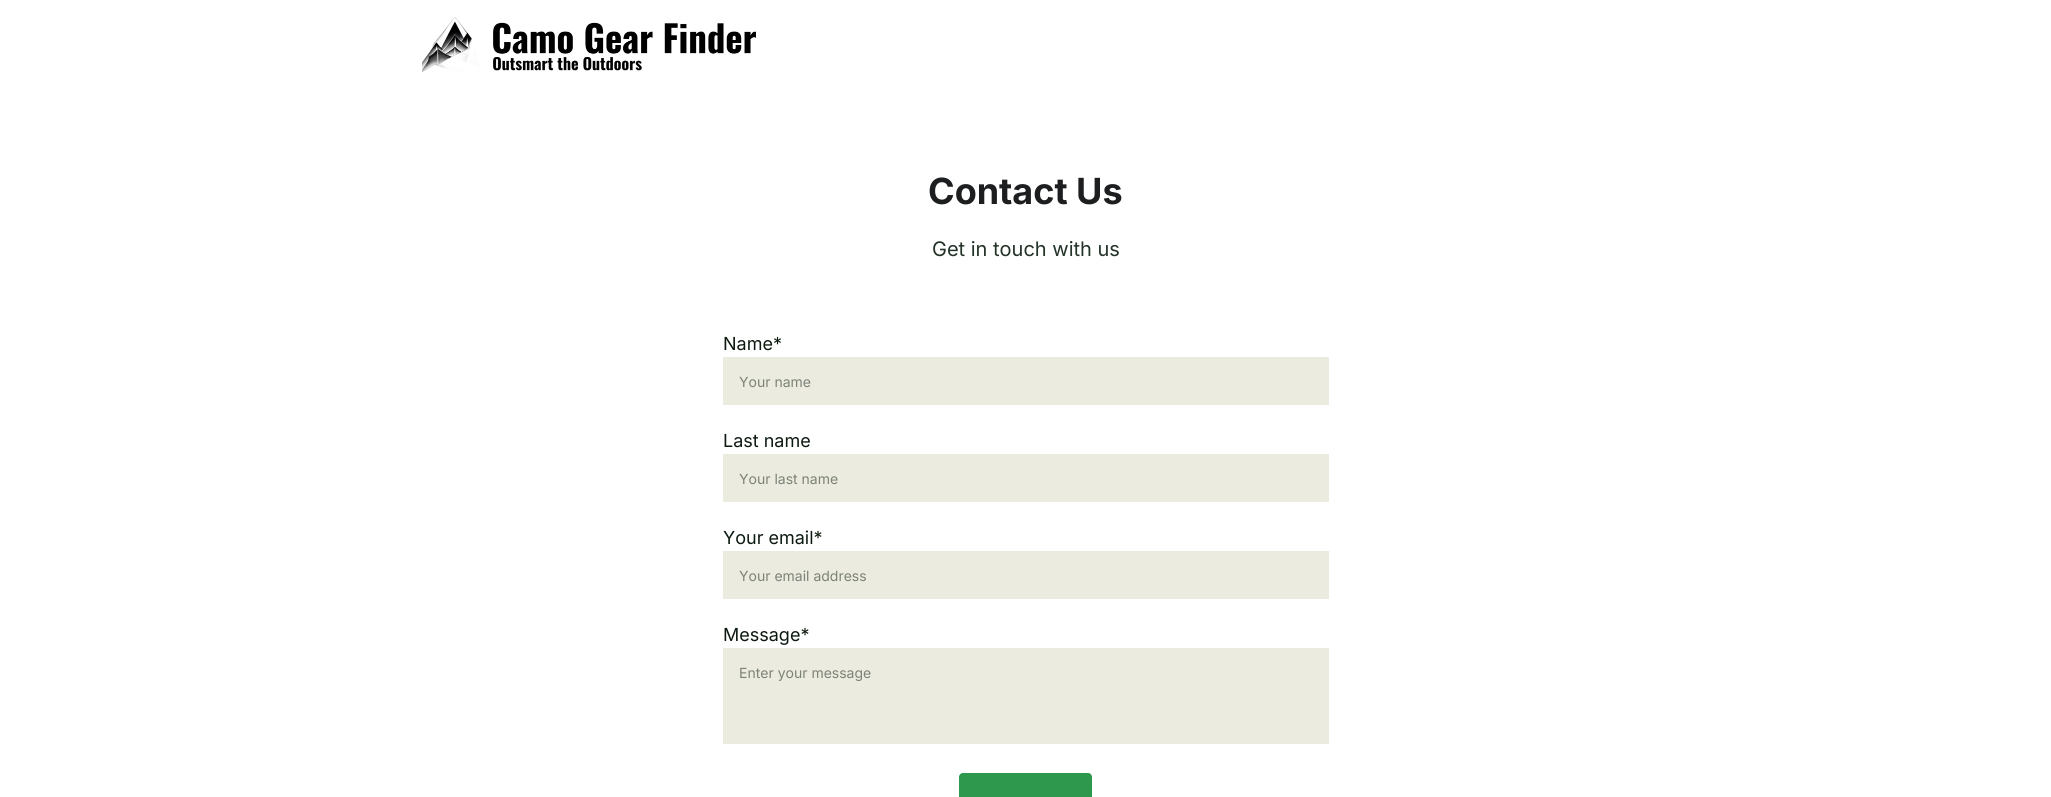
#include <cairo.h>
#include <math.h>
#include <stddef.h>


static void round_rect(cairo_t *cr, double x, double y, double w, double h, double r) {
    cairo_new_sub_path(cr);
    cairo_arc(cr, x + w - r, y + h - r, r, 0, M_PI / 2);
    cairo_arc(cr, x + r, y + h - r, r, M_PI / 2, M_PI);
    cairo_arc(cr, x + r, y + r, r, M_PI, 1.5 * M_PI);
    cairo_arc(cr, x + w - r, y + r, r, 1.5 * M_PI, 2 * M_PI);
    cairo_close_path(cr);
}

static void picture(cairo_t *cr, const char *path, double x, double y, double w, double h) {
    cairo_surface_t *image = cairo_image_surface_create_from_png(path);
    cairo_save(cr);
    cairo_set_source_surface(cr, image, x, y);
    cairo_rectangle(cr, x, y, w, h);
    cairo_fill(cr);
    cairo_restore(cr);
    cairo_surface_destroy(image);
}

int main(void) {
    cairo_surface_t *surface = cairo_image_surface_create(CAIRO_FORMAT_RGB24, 2051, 797);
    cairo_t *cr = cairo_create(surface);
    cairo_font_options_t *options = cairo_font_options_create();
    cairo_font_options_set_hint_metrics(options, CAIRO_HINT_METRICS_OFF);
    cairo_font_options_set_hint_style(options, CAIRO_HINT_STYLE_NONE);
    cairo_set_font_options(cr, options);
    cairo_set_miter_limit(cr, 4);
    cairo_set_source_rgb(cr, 1, 1, 1);
    cairo_paint(cr);
    picture(cr, "img1.png", 422, 17, 334, 55);
    cairo_select_font_face(cr, "Inter", CAIRO_FONT_SLANT_NORMAL, CAIRO_FONT_WEIGHT_BOLD);
    cairo_set_font_size(cr, 36);
    cairo_set_source_rgb(cr, 0.114, 0.118, 0.125);
    cairo_move_to(cr, 928, 204);
    cairo_show_text(cr, "Contact Us");
    cairo_select_font_face(cr, "Inter", CAIRO_FONT_SLANT_NORMAL, CAIRO_FONT_WEIGHT_NORMAL);
    cairo_set_font_size(cr, 20);
    cairo_set_source_rgb(cr, 0.141, 0.2, 0.157);
    cairo_move_to(cr, 932, 256);
    cairo_show_text(cr, "Get in touch with us");
    cairo_set_font_size(cr, 18);
    cairo_set_source_rgb(cr, 0.051, 0.102, 0.063);
    cairo_move_to(cr, 723, 350);
    cairo_show_text(cr, "Name*");
    cairo_set_source_rgb(cr, 0.922, 0.918, 0.875);
    cairo_rectangle(cr, 723, 357, 606, 48);
    cairo_fill(cr);
    cairo_set_font_size(cr, 14);
    cairo_set_source_rgb(cr, 0.486, 0.51, 0.471);
    cairo_move_to(cr, 739, 387);
    cairo_show_text(cr, "Your name");
    cairo_set_font_size(cr, 18);
    cairo_set_source_rgb(cr, 0.051, 0.102, 0.063);
    cairo_move_to(cr, 723, 447);
    cairo_show_text(cr, "Last name");
    cairo_set_source_rgb(cr, 0.922, 0.918, 0.875);
    cairo_rectangle(cr, 723, 454, 606, 48);
    cairo_fill(cr);
    cairo_set_font_size(cr, 14);
    cairo_set_source_rgb(cr, 0.486, 0.51, 0.471);
    cairo_move_to(cr, 739, 484);
    cairo_show_text(cr, "Your last name");
    cairo_set_font_size(cr, 18);
    cairo_set_source_rgb(cr, 0.051, 0.102, 0.063);
    cairo_move_to(cr, 723, 544);
    cairo_show_text(cr, "Your email*");
    cairo_set_source_rgb(cr, 0.922, 0.918, 0.875);
    cairo_rectangle(cr, 723, 551, 606, 48);
    cairo_fill(cr);
    cairo_set_font_size(cr, 14);
    cairo_set_source_rgb(cr, 0.486, 0.51, 0.471);
    cairo_move_to(cr, 739, 581);
    cairo_show_text(cr, "Your email address");
    cairo_set_font_size(cr, 18);
    cairo_set_source_rgb(cr, 0.051, 0.102, 0.063);
    cairo_move_to(cr, 723, 641);
    cairo_show_text(cr, "Message*");
    cairo_set_source_rgb(cr, 0.922, 0.918, 0.875);
    cairo_rectangle(cr, 723, 648, 606, 96);
    cairo_fill(cr);
    cairo_set_font_size(cr, 14);
    cairo_set_source_rgb(cr, 0.486, 0.51, 0.471);
    cairo_move_to(cr, 739, 678);
    cairo_show_text(cr, "Enter your message");
    cairo_set_source_rgb(cr, 0.18, 0.6, 0.302);
    round_rect(cr, 959, 773, 133, 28, 4);
    cairo_fill(cr);
    cairo_surface_write_to_png(surface, "page.png");
    cairo_font_options_destroy(options);
    cairo_destroy(cr);
    cairo_surface_destroy(surface);
    return 0;
}
